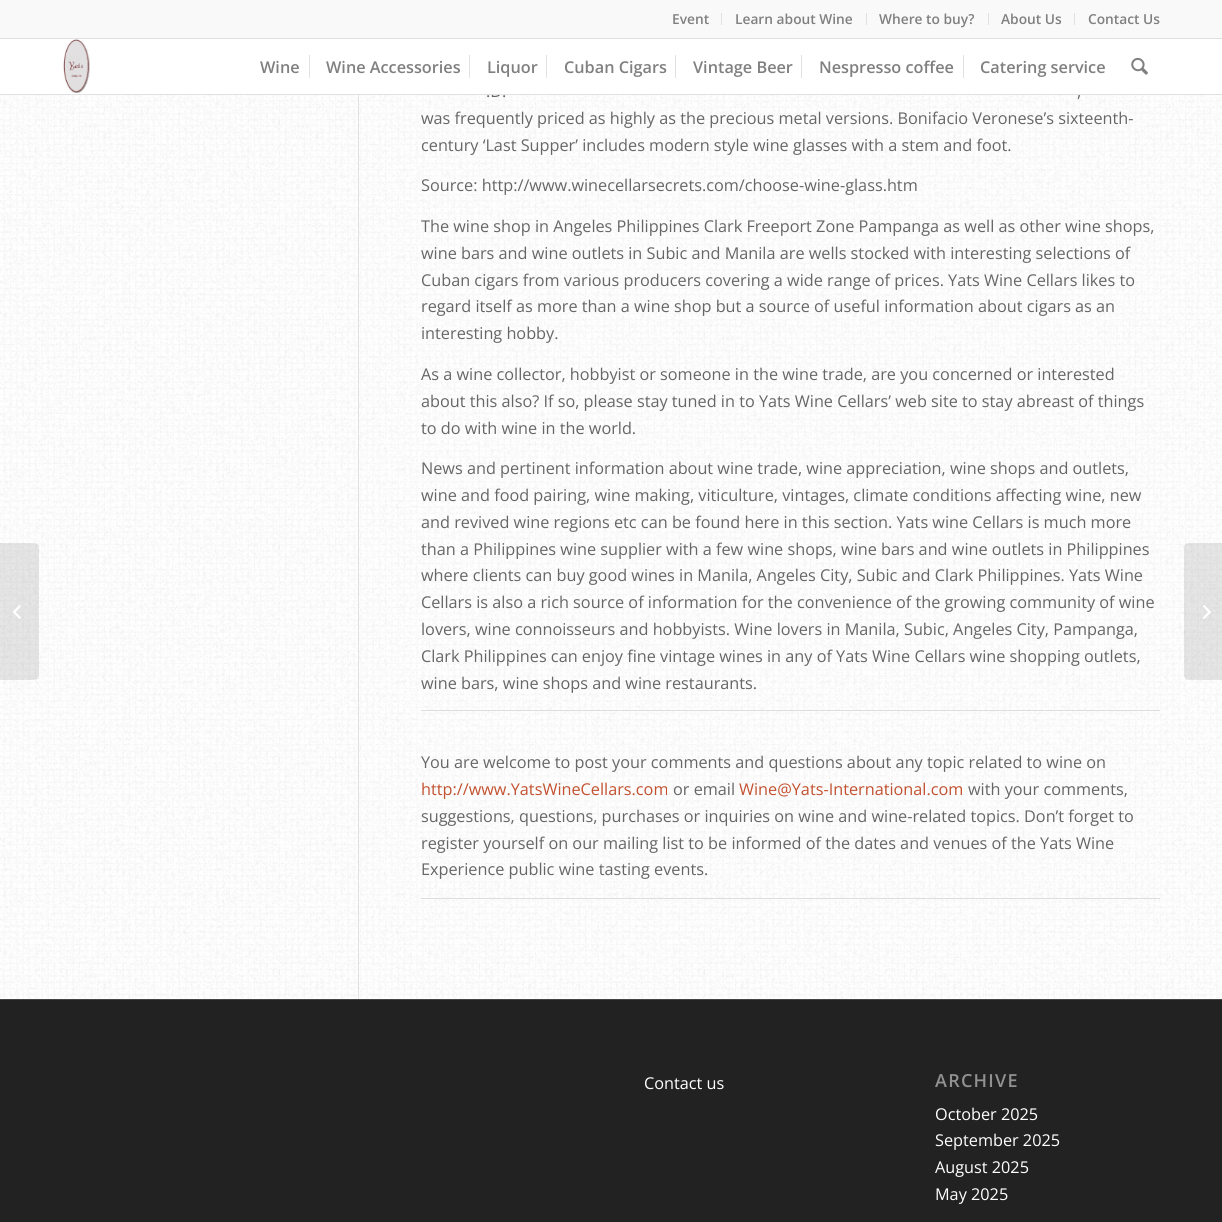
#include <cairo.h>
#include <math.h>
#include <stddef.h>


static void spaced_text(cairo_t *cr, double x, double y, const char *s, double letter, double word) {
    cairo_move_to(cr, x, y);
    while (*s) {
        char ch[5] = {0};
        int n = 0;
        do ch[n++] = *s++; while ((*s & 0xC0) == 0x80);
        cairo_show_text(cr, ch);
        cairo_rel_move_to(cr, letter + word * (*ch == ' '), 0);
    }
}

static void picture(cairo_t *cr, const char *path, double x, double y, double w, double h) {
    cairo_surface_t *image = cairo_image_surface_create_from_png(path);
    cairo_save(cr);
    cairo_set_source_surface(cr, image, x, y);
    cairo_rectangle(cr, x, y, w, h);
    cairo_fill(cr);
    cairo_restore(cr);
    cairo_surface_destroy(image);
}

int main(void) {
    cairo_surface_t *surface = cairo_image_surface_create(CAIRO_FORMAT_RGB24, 1222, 1222);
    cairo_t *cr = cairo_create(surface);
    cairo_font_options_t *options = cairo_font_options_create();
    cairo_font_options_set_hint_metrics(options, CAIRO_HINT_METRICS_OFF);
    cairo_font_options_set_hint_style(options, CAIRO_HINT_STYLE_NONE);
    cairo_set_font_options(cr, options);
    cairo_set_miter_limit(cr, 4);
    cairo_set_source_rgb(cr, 1, 1, 1);
    cairo_paint(cr);
    cairo_set_source_rgb(cr, 0.973, 0.973, 0.973);
    cairo_rectangle(cr, 0, 0, 1222, 38);
    cairo_fill(cr);
    cairo_set_source_rgb(cr, 0.882, 0.882, 0.882);
    cairo_rectangle(cr, 0, 38, 1222, 1);
    cairo_fill(cr);
    cairo_rectangle(cr, 721, 13, 1, 12);
    cairo_fill(cr);
    cairo_select_font_face(cr, "Open Sans SemiBold", CAIRO_FONT_SLANT_NORMAL, CAIRO_FONT_WEIGHT_NORMAL);
    cairo_set_font_size(cr, 13.75);
    cairo_set_source_rgb(cr, 0.502, 0.502, 0.502);
    cairo_move_to(cr, 672, 24);
    cairo_show_text(cr, "Event");
    cairo_set_source_rgb(cr, 0.882, 0.882, 0.882);
    cairo_rectangle(cr, 866, 13, 1, 12);
    cairo_fill(cr);
    cairo_set_source_rgb(cr, 0.502, 0.502, 0.502);
    cairo_move_to(cr, 735, 24);
    cairo_show_text(cr, "Learn about Wine");
    cairo_set_source_rgb(cr, 0.882, 0.882, 0.882);
    cairo_rectangle(cr, 988, 13, 1, 12);
    cairo_fill(cr);
    cairo_set_source_rgb(cr, 0.502, 0.502, 0.502);
    cairo_move_to(cr, 879, 24);
    cairo_show_text(cr, "Where to buy?");
    cairo_set_source_rgb(cr, 0.882, 0.882, 0.882);
    cairo_rectangle(cr, 1074, 13, 1, 12);
    cairo_fill(cr);
    cairo_set_source_rgb(cr, 0.502, 0.502, 0.502);
    cairo_move_to(cr, 1001, 24);
    cairo_show_text(cr, "About Us");
    cairo_move_to(cr, 1088, 24);
    cairo_show_text(cr, "Contact Us");
    picture(cr, "img4.png", 0, 95, 1222, 904);
    cairo_select_font_face(cr, "Open Sans", CAIRO_FONT_SLANT_NORMAL, CAIRO_FONT_WEIGHT_NORMAL);
    cairo_set_font_size(cr, 16.25);
    cairo_set_source_rgb(cr, 0.4, 0.4, 0.4);
    cairo_move_to(cr, 486, 97);
    cairo_show_text(cr, ".D.");
    cairo_set_source_rgb(cr, 0.882, 0.882, 0.882);
    cairo_rectangle(cr, 0, 94, 1222, 1);
    cairo_fill(cr);
    picture(cr, "img1.png", 63, 39, 27, 54);
    cairo_select_font_face(cr, "Open Sans SemiBold", CAIRO_FONT_SLANT_NORMAL, CAIRO_FONT_WEIGHT_NORMAL);
    cairo_set_source_rgb(cr, 0.502, 0.502, 0.502);
    cairo_move_to(cr, 260, 73);
    cairo_show_text(cr, "Wine");
    cairo_move_to(cr, 326, 73);
    cairo_show_text(cr, "Wine Accessories");
    cairo_set_source_rgb(cr, 0.882, 0.882, 0.882);
    cairo_rectangle(cr, 309, 55, 1, 23);
    cairo_fill(cr);
    cairo_set_source_rgb(cr, 0.502, 0.502, 0.502);
    cairo_move_to(cr, 487, 73);
    cairo_show_text(cr, "Liquor");
    cairo_set_source_rgb(cr, 0.882, 0.882, 0.882);
    cairo_rectangle(cr, 469, 55, 1, 23);
    cairo_fill(cr);
    cairo_set_source_rgb(cr, 0.502, 0.502, 0.502);
    cairo_move_to(cr, 564, 73);
    cairo_show_text(cr, "Cuban Cigars");
    cairo_set_source_rgb(cr, 0.882, 0.882, 0.882);
    cairo_rectangle(cr, 546, 55, 1, 23);
    cairo_fill(cr);
    cairo_set_source_rgb(cr, 0.502, 0.502, 0.502);
    cairo_move_to(cr, 693, 73);
    cairo_show_text(cr, "Vintage Beer");
    cairo_set_source_rgb(cr, 0.882, 0.882, 0.882);
    cairo_rectangle(cr, 675, 55, 1, 23);
    cairo_fill(cr);
    cairo_set_source_rgb(cr, 0.502, 0.502, 0.502);
    cairo_move_to(cr, 819, 73);
    cairo_show_text(cr, "Nespresso coffee");
    cairo_set_source_rgb(cr, 0.882, 0.882, 0.882);
    cairo_rectangle(cr, 801, 55, 1, 23);
    cairo_fill(cr);
    cairo_set_source_rgb(cr, 0.502, 0.502, 0.502);
    cairo_move_to(cr, 980, 73);
    cairo_show_text(cr, "Catering service");
    cairo_set_source_rgb(cr, 0.882, 0.882, 0.882);
    cairo_rectangle(cr, 963, 55, 1, 23);
    cairo_fill(cr);
    picture(cr, "img2.png", 1131, 57, 17, 18);
    cairo_set_source_rgb(cr, 1, 1, 1);
    cairo_rectangle(cr, 491, 85, 10, 9);
    cairo_fill(cr);
    cairo_set_source_rgba(cr, 0, 0, 0, 0.1);
    cairo_new_path(cr);
    cairo_move_to(cr, 0, 543);
    cairo_line_to(cr, 34, 543);
    cairo_curve_to(cr, 37, 543, 39, 545, 39, 548);
    cairo_line_to(cr, 39, 675);
    cairo_curve_to(cr, 39, 678, 37, 680, 34, 680);
    cairo_line_to(cr, 0, 680);
    cairo_close_path(cr);
    cairo_fill(cr);
    picture(cr, "img3.png", 13, 605, 8, 14);
    cairo_set_source_rgb(cr, 0.882, 0.882, 0.882);
    cairo_rectangle(cr, 358, 95, 1, 904);
    cairo_fill(cr);
    cairo_select_font_face(cr, "Open Sans", CAIRO_FONT_SLANT_NORMAL, CAIRO_FONT_WEIGHT_NORMAL);
    cairo_set_source_rgb(cr, 0.4, 0.4, 0.4);
    cairo_move_to(cr, 1077, 97);
    cairo_show_text(cr, ",");
    cairo_move_to(cr, 421, 124);
    cairo_show_text(cr, "was frequently priced as highly as the precious metal versions. Bonifacio Veronese’s sixteenth-");
    cairo_move_to(cr, 421, 151);
    cairo_show_text(cr, "century ‘Last Supper’ includes modern style wine glasses with a stem and foot.");
    cairo_move_to(cr, 421, 191);
    cairo_show_text(cr, "Source: http://www.winecellarsecrets.com/choose-wine-glass.htm");
    cairo_move_to(cr, 421, 232);
    cairo_show_text(cr, "The wine shop in Angeles Philippines Clark Freeport Zone Pampanga as well as other wine shops,");
    cairo_move_to(cr, 421, 259);
    cairo_show_text(cr, "wine bars and wine outlets in Subic and Manila are wells stocked with interesting selections of");
    cairo_move_to(cr, 421, 286);
    cairo_show_text(cr, "Cuban cigars from various producers covering a wide range of prices. Yats Wine Cellars likes to");
    cairo_move_to(cr, 421, 312);
    cairo_show_text(cr, "regard itself as more than a wine shop but a source of useful information about cigars as an");
    cairo_move_to(cr, 421, 339);
    cairo_show_text(cr, "interesting hobby.");
    cairo_move_to(cr, 421, 380);
    cairo_show_text(cr, "As a wine collector, hobbyist or someone in the wine trade, are you concerned or interested");
    cairo_move_to(cr, 421, 407);
    cairo_show_text(cr, "about this also? If so, please stay tuned in to Yats Wine Cellars’ web site to stay abreast of things");
    cairo_move_to(cr, 421, 434);
    cairo_show_text(cr, "to do with wine in the world.");
    cairo_move_to(cr, 421, 474);
    cairo_show_text(cr, "News and pertinent information about wine trade, wine appreciation, wine shops and outlets,");
    cairo_move_to(cr, 421, 501);
    cairo_show_text(cr, "wine and food pairing, wine making, viticulture, vintages, climate conditions affecting wine, new");
    cairo_move_to(cr, 421, 528);
    cairo_show_text(cr, "and revived wine regions etc can be found here in this section. Yats wine Cellars is much more");
    cairo_move_to(cr, 421, 555);
    cairo_show_text(cr, "than a Philippines wine supplier with a few wine shops, wine bars and wine outlets in Philippines");
    cairo_move_to(cr, 421, 581);
    cairo_show_text(cr, "where clients can buy good wines in Manila, Angeles City, Subic and Clark Philippines. Yats Wine");
    cairo_move_to(cr, 421, 608);
    cairo_show_text(cr, "Cellars is also a rich source of information for the convenience of the growing community of wine");
    cairo_move_to(cr, 421, 635);
    cairo_show_text(cr, "lovers, wine connoisseurs and hobbyists. Wine lovers in Manila, Subic, Angeles City, Pampanga,");
    cairo_move_to(cr, 421, 662);
    cairo_show_text(cr, "Clark Philippines can enjoy fine vintage wines in any of Yats Wine Cellars wine shopping outlets,");
    cairo_move_to(cr, 421, 689);
    cairo_show_text(cr, "wine bars, wine shops and wine restaurants.");
    cairo_set_source_rgb(cr, 0.867, 0.867, 0.867);
    cairo_rectangle(cr, 421, 710, 739, 1);
    cairo_fill(cr);
    cairo_set_source_rgb(cr, 0.4, 0.4, 0.4);
    cairo_move_to(cr, 421, 768);
    cairo_show_text(cr, "You are welcome to post your comments and questions about any topic related to wine on");
    cairo_set_source_rgb(cr, 0.765, 0.318, 0.184);
    cairo_move_to(cr, 421, 795);
    cairo_show_text(cr, "http://www.YatsWineCellars.com");
    cairo_set_source_rgb(cr, 0.4, 0.4, 0.4);
    cairo_move_to(cr, 673, 795);
    cairo_show_text(cr, "or email");
    cairo_set_source_rgb(cr, 0.765, 0.318, 0.184);
    cairo_move_to(cr, 739, 795);
    cairo_show_text(cr, "Wine@Yats-International.com");
    cairo_set_source_rgb(cr, 0.4, 0.4, 0.4);
    cairo_move_to(cr, 968, 795);
    cairo_show_text(cr, "with your comments,");
    cairo_move_to(cr, 421, 822);
    cairo_show_text(cr, "suggestions, questions, purchases or inquiries on wine and wine-related topics. Don’t forget to");
    cairo_move_to(cr, 421, 849);
    cairo_show_text(cr, "register yourself on our mailing list to be informed of the dates and venues of the Yats Wine");
    cairo_move_to(cr, 421, 875);
    cairo_show_text(cr, "Experience public wine tasting events.");
    cairo_set_source_rgb(cr, 0.867, 0.867, 0.867);
    cairo_rectangle(cr, 421, 898, 739, 1);
    cairo_fill(cr);
    cairo_set_source_rgb(cr, 0.133, 0.133, 0.133);
    cairo_rectangle(cr, 0, 1000, 1222, 222);
    cairo_fill(cr);
    cairo_set_source_rgb(cr, 0.267, 0.267, 0.267);
    cairo_rectangle(cr, 0, 999, 1222, 1);
    cairo_fill(cr);
    cairo_set_source_rgb(cr, 1, 1, 1);
    cairo_move_to(cr, 644, 1089);
    cairo_show_text(cr, "Contact us");
    cairo_select_font_face(cr, "Open Sans SemiBold", CAIRO_FONT_SLANT_NORMAL, CAIRO_FONT_WEIGHT_NORMAL);
    cairo_set_font_size(cr, 18);
    cairo_set_source_rgb(cr, 0.569, 0.569, 0.569);
    spaced_text(cr, 935, 1087, "ARCHIVE", 1.25, 0);
    cairo_select_font_face(cr, "Open Sans", CAIRO_FONT_SLANT_NORMAL, CAIRO_FONT_WEIGHT_NORMAL);
    cairo_set_font_size(cr, 16.25);
    cairo_set_source_rgb(cr, 1, 1, 1);
    cairo_move_to(cr, 935, 1120);
    cairo_show_text(cr, "October 2025");
    cairo_move_to(cr, 935, 1146);
    cairo_show_text(cr, "September 2025");
    cairo_move_to(cr, 935, 1173);
    cairo_show_text(cr, "August 2025");
    cairo_move_to(cr, 935, 1200);
    cairo_show_text(cr, "May 2025");
    cairo_set_source_rgba(cr, 0, 0, 0, 0.1);
    cairo_new_path(cr);
    cairo_move_to(cr, 1189, 543);
    cairo_line_to(cr, 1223, 543);
    cairo_line_to(cr, 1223, 680);
    cairo_line_to(cr, 1189, 680);
    cairo_curve_to(cr, 1186, 680, 1184, 678, 1184, 675);
    cairo_line_to(cr, 1184, 548);
    cairo_curve_to(cr, 1184, 545, 1186, 543, 1189, 543);
    cairo_close_path(cr);
    cairo_fill(cr);
    picture(cr, "img5.png", 1203, 605, 8, 14);
    cairo_surface_write_to_png(surface, "page.png");
    cairo_font_options_destroy(options);
    cairo_destroy(cr);
    cairo_surface_destroy(surface);
    return 0;
}
